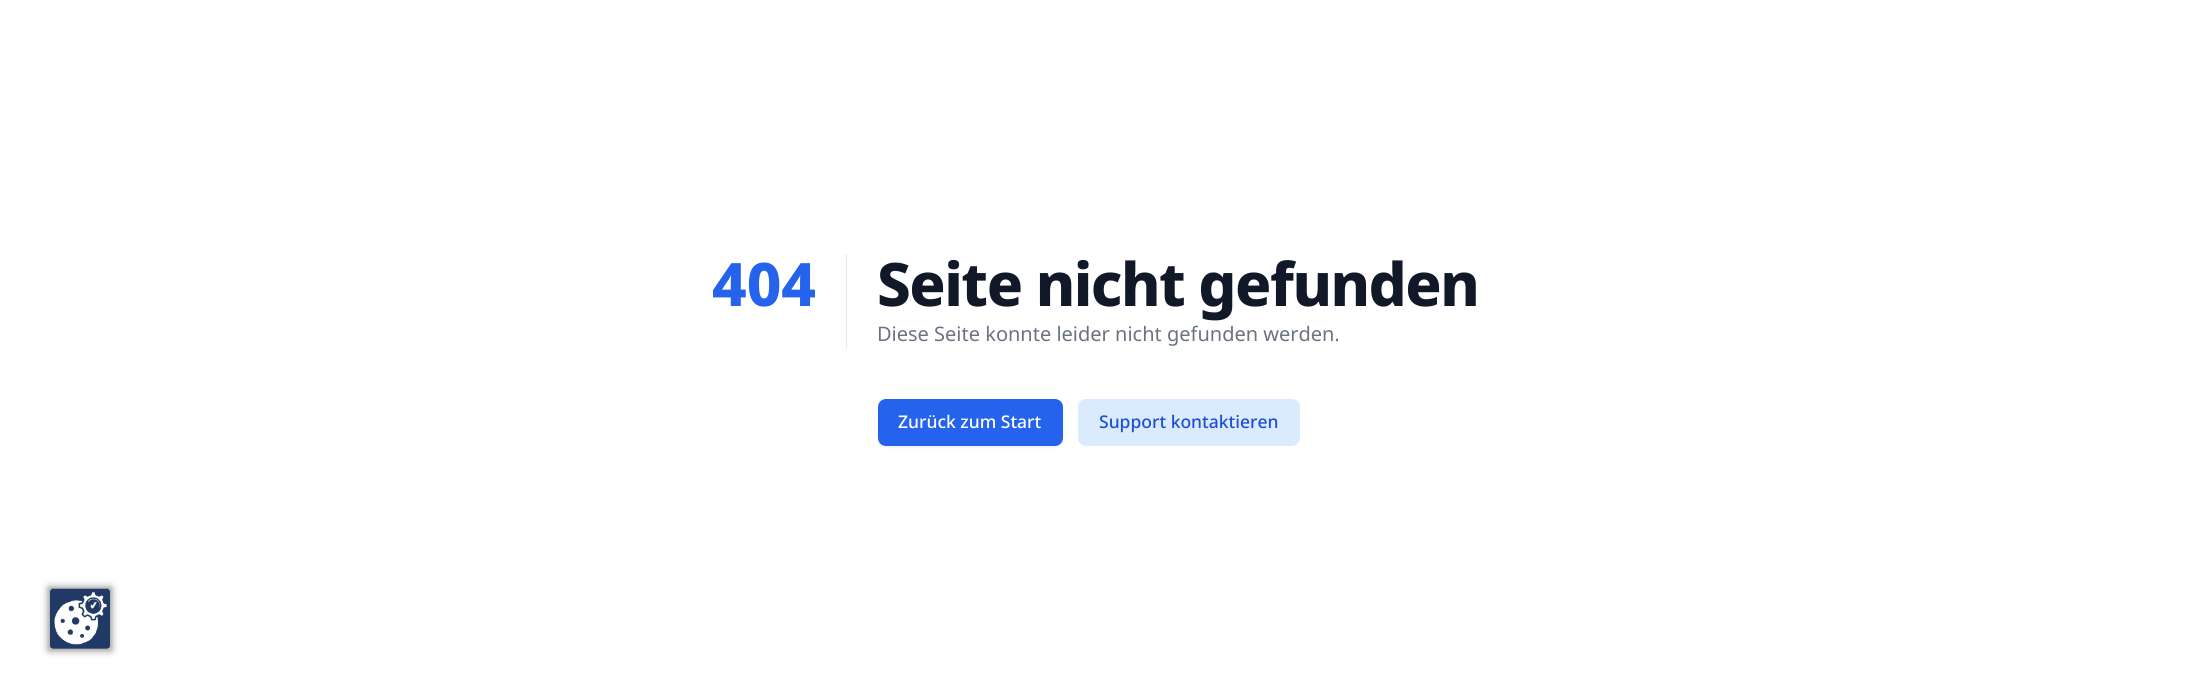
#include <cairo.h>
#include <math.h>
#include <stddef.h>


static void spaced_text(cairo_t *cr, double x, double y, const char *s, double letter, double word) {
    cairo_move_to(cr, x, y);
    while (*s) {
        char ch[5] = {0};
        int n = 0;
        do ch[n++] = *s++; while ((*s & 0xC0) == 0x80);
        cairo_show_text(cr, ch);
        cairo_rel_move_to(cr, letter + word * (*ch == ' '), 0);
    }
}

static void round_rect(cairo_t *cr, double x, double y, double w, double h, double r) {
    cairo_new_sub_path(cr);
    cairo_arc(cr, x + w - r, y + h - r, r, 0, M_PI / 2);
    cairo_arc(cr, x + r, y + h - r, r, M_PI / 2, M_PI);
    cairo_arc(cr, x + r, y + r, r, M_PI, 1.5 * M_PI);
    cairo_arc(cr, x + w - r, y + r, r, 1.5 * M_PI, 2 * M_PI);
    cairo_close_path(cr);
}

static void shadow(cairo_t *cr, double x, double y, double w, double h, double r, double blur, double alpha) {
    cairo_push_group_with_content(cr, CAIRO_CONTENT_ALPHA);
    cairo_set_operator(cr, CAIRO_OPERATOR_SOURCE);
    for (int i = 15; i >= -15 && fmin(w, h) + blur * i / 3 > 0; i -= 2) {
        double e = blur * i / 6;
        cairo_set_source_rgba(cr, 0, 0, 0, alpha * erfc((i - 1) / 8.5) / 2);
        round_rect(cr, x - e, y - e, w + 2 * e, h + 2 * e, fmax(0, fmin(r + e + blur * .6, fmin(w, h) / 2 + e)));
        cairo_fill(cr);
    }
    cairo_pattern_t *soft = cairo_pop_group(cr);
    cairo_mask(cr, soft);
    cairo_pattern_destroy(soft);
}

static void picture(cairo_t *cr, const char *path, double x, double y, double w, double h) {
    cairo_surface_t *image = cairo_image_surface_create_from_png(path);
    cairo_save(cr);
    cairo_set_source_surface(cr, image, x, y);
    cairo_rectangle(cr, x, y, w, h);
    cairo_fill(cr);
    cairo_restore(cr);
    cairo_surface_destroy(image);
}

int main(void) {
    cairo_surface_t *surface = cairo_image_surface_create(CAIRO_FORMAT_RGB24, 2190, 698);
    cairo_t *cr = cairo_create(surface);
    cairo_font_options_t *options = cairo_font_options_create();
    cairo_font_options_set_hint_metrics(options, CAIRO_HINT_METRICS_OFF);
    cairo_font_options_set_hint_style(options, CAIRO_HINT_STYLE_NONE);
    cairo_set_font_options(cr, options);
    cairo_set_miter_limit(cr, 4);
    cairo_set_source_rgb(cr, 1, 1, 1);
    cairo_paint(cr);
    cairo_select_font_face(cr, "Noto Sans ExtraBold", CAIRO_FONT_SLANT_NORMAL, CAIRO_FONT_WEIGHT_NORMAL);
    cairo_set_font_size(cr, 60);
    cairo_set_source_rgb(cr, 0.145, 0.388, 0.922);
    cairo_move_to(cr, 712, 306);
    cairo_show_text(cr, "404");
    cairo_set_source_rgb(cr, 0.898, 0.906, 0.922);
    cairo_rectangle(cr, 846, 254, 1, 95);
    cairo_fill(cr);
    cairo_set_source_rgb(cr, 0.067, 0.094, 0.153);
    spaced_text(cr, 877, 306, "Seite nicht gefunden", -1.5, 0);
    cairo_select_font_face(cr, "Noto Sans", CAIRO_FONT_SLANT_NORMAL, CAIRO_FONT_WEIGHT_NORMAL);
    cairo_set_font_size(cr, 20);
    cairo_set_source_rgb(cr, 0.42, 0.447, 0.502);
    cairo_move_to(cr, 877, 341);
    cairo_show_text(cr, "Diese Seite konnte leider nicht gefunden werden.");
    cairo_set_source_rgb(cr, 0, 0, 0);
    shadow(cr, 878, 400, 185, 48, 8, 1, 0.05);
    cairo_set_source_rgb(cr, 0.145, 0.388, 0.922);
    round_rect(cr, 878, 399, 185, 47, 8);
    cairo_fill(cr);
    cairo_select_font_face(cr, "Noto Sans Medium", CAIRO_FONT_SLANT_NORMAL, CAIRO_FONT_WEIGHT_NORMAL);
    cairo_set_font_size(cr, 17.5);
    cairo_set_source_rgb(cr, 1, 1, 1);
    cairo_move_to(cr, 898, 428);
    cairo_show_text(cr, "Zurück zum Start");
    cairo_set_source_rgb(cr, 0.859, 0.918, 0.996);
    round_rect(cr, 1078, 399, 222, 47, 8);
    cairo_fill(cr);
    cairo_set_source_rgb(cr, 0.114, 0.306, 0.847);
    cairo_move_to(cr, 1099, 428);
    cairo_show_text(cr, "Support kontaktieren");
    cairo_set_source_rgb(cr, 0, 0, 0);
    shadow(cr, 49, 588, 62, 62, 0, 4, 0.5);
    cairo_set_source_rgba(cr, 1, 1, 1, 0.6);
    cairo_rectangle(cr, 50, 589, 60, 60);
    cairo_fill(cr);
    picture(cr, "img1.png", 50, 588, 60, 61);
    cairo_surface_write_to_png(surface, "page.png");
    cairo_font_options_destroy(options);
    cairo_destroy(cr);
    cairo_surface_destroy(surface);
    return 0;
}
